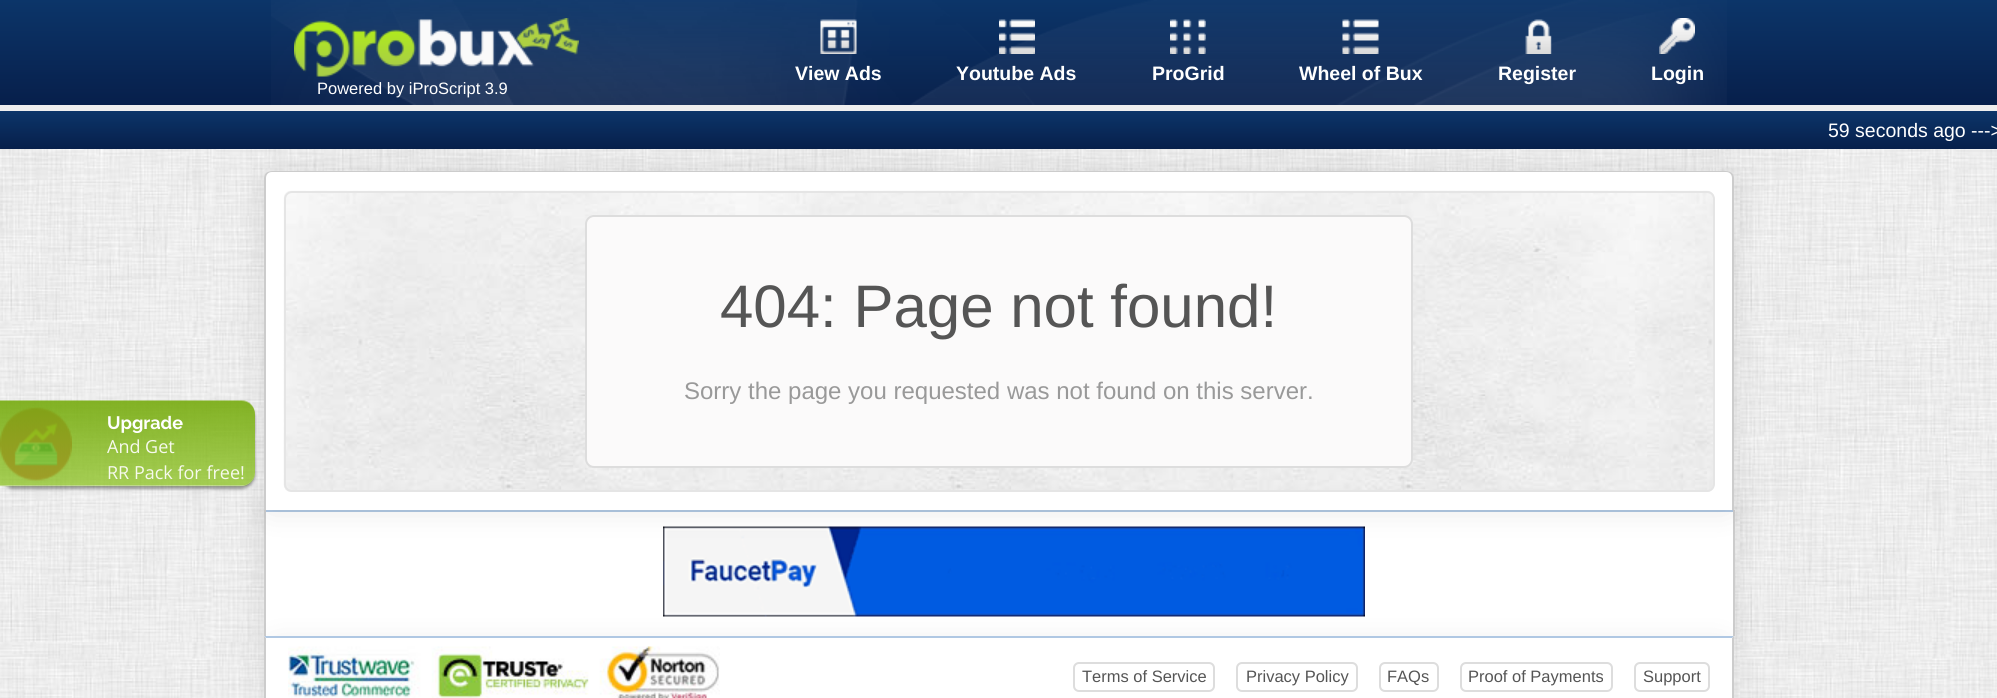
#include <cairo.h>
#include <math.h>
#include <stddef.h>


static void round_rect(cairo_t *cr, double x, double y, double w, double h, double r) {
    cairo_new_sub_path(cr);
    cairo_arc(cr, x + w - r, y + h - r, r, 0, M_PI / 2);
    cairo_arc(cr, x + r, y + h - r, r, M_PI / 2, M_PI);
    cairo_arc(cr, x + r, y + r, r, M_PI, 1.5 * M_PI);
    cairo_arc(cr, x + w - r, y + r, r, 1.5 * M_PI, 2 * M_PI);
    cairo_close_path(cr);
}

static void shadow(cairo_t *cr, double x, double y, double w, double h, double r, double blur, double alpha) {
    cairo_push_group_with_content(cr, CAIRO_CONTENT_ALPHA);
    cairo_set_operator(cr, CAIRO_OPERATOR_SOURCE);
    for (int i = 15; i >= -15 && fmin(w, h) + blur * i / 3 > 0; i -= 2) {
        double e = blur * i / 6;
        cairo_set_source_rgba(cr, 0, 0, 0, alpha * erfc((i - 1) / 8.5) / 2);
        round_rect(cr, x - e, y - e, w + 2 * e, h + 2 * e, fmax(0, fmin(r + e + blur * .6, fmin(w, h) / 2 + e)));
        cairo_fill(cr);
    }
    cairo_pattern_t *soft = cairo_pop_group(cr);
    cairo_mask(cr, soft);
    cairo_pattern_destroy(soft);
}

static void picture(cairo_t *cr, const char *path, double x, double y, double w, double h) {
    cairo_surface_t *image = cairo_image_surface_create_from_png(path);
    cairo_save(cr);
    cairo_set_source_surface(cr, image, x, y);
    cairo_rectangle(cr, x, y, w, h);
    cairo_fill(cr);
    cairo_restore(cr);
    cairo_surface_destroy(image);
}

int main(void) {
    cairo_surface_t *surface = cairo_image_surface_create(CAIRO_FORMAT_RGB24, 1997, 698);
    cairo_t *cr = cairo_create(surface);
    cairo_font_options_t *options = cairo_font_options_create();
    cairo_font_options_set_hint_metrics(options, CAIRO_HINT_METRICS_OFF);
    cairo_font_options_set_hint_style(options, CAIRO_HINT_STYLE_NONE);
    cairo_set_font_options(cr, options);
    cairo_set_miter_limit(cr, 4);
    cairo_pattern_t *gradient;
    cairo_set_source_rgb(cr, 1, 1, 1);
    cairo_paint(cr);
    picture(cr, "img1.png", 0, 149, 1997, 549);
    gradient = cairo_pattern_create_linear(999, 0, 999, 105);
    cairo_pattern_add_color_stop_rgba(gradient, 0, 0.047, 0.208, 0.412, 1);
    cairo_pattern_add_color_stop_rgba(gradient, 1, 0.027, 0.122, 0.294, 1);
    cairo_set_source(cr, gradient);
    cairo_pattern_destroy(gradient);
    cairo_rectangle(cr, 0, 0, 1997, 105);
    cairo_fill(cr);
    cairo_set_source_rgb(cr, 0.933, 0.933, 0.933);
    cairo_rectangle(cr, 0, 105, 1997, 6);
    cairo_fill(cr);
    picture(cr, "img2.png", 271, 0, 1456, 105);
    picture(cr, "img3.png", 820, 19, 37, 35);
    cairo_select_font_face(cr, "Liberation Sans", CAIRO_FONT_SLANT_NORMAL, CAIRO_FONT_WEIGHT_BOLD);
    cairo_set_font_size(cr, 19.5);
    cairo_set_source_rgb(cr, 1, 1, 1);
    cairo_move_to(cr, 795, 80);
    cairo_show_text(cr, "View Ads");
    picture(cr, "img4.png", 999, 19, 36, 35);
    cairo_move_to(cr, 956, 80);
    cairo_show_text(cr, "Youtube Ads");
    picture(cr, "img5.png", 1170, 19, 36, 35);
    cairo_move_to(cr, 1152, 80);
    cairo_show_text(cr, "ProGrid");
    picture(cr, "img6.png", 1342, 19, 37, 35);
    cairo_move_to(cr, 1299, 80);
    cairo_show_text(cr, "Wheel of Bux");
    picture(cr, "img7.png", 1525, 19, 27, 35);
    cairo_move_to(cr, 1498, 80);
    cairo_show_text(cr, "Register");
    picture(cr, "img8.png", 1659, 18, 36, 36);
    cairo_move_to(cr, 1651, 80);
    cairo_show_text(cr, "Login");
    picture(cr, "img9.png", 294, 18, 285, 59);
    cairo_select_font_face(cr, "Liberation Sans", CAIRO_FONT_SLANT_NORMAL, CAIRO_FONT_WEIGHT_NORMAL);
    cairo_set_font_size(cr, 16.5);
    cairo_move_to(cr, 317, 94);
    cairo_show_text(cr, "Powered by iProScript 3.9");
    gradient = cairo_pattern_create_linear(999, 111, 999, 149);
    cairo_pattern_add_color_stop_rgba(gradient, 0, 0.047, 0.208, 0.412, 1);
    cairo_pattern_add_color_stop_rgba(gradient, 1, 0.027, 0.122, 0.294, 1);
    cairo_set_source(cr, gradient);
    cairo_pattern_destroy(gradient);
    cairo_rectangle(cr, 0, 111, 1997, 38);
    cairo_fill(cr);
    cairo_set_font_size(cr, 19.5);
    cairo_set_source_rgb(cr, 1, 1, 1);
    cairo_move_to(cr, 1828, 137);
    cairo_show_text(cr, "59 seconds ago --->");
    cairo_set_source_rgb(cr, 0, 0, 0);
    shadow(cr, 264, 510, 1470, 126, 0, 15, 0.1);
    cairo_set_source_rgb(cr, 1, 1, 1);
    cairo_rectangle(cr, 266, 512, 1467, 124);
    cairo_fill(cr);
    cairo_set_source_rgb(cr, 0.69, 0.784, 0.89);
    cairo_rectangle(cr, 264, 510, 1470, 2);
    cairo_fill(cr);
    cairo_set_source_rgb(cr, 0.8, 0.8, 0.8);
    cairo_rectangle(cr, 1733, 510, 2, 126);
    cairo_fill(cr);
    cairo_rectangle(cr, 264, 510, 2, 126);
    cairo_fill(cr);
    picture(cr, "img12.png", 663, 526, 702, 91);
    cairo_set_source_rgb(cr, 0, 0, 0);
    shadow(cr, 264, 171, 1470, 339, 8, 15, 0.1);
    cairo_set_source_rgb(cr, 1, 1, 1);
    cairo_new_path(cr);
    cairo_move_to(cr, 272, 171);
    cairo_line_to(cr, 1726, 171);
    cairo_curve_to(cr, 1730.5, 171, 1734, 174.5, 1734, 179);
    cairo_line_to(cr, 1734, 510);
    cairo_line_to(cr, 264, 510);
    cairo_line_to(cr, 264, 179);
    cairo_curve_to(cr, 264, 174.5, 267.5, 171, 272, 171);
    cairo_close_path(cr);
    cairo_fill(cr);
    cairo_set_source_rgb(cr, 0.8, 0.8, 0.8);
    cairo_set_fill_rule(cr, CAIRO_FILL_RULE_EVEN_ODD);
    cairo_new_path(cr);
    cairo_move_to(cr, 272, 171);
    cairo_line_to(cr, 1726, 171);
    cairo_curve_to(cr, 1731, 171, 1734, 174, 1734, 178);
    cairo_line_to(cr, 1734, 510);
    cairo_line_to(cr, 264, 510);
    cairo_line_to(cr, 264, 178);
    cairo_curve_to(cr, 264, 174, 267, 171, 272, 171);
    cairo_close_path(cr);
    cairo_move_to(cr, 272, 172);
    cairo_line_to(cr, 1726, 172);
    cairo_curve_to(cr, 1730, 172, 1732, 175, 1732, 178);
    cairo_line_to(cr, 1732, 510);
    cairo_line_to(cr, 266, 510);
    cairo_line_to(cr, 266, 178);
    cairo_curve_to(cr, 266, 175, 268, 172, 272, 172);
    cairo_close_path(cr);
    cairo_fill(cr);
    picture(cr, "img10.png", 283, 190, 1432, 302);
    round_rect(cr, 285, 192, 1429, 299, 7);
    cairo_set_source_rgb(cr, 0.898, 0.898, 0.898);
    cairo_stroke(cr);
    cairo_set_source_rgb(cr, 0.984, 0.98, 0.98);
    round_rect(cr, 586, 216, 826, 251, 8);
    cairo_fill_preserve(cr);
    cairo_set_source_rgb(cr, 0.867, 0.867, 0.867);
    cairo_stroke(cr);
    cairo_set_font_size(cr, 60);
    cairo_set_source_rgb(cr, 0.333, 0.333, 0.333);
    cairo_move_to(cr, 720, 327);
    cairo_show_text(cr, "404: Page not found!");
    cairo_set_font_size(cr, 24);
    cairo_set_source_rgb(cr, 0.6, 0.6, 0.6);
    cairo_move_to(cr, 684, 399);
    cairo_show_text(cr, "Sorry the page you requested was not found on this server.");
    cairo_save(cr);
    cairo_new_path(cr);
    cairo_move_to(cr, 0, 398);
    cairo_line_to(cr, 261, 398);
    cairo_line_to(cr, 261, 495);
    cairo_line_to(cr, 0, 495);
    cairo_close_path(cr);
    cairo_move_to(cr, 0, 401);
    cairo_line_to(cr, 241, 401);
    cairo_curve_to(cr, 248.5, 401, 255, 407.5, 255, 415);
    cairo_line_to(cr, 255, 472);
    cairo_curve_to(cr, 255, 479.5, 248.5, 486, 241, 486);
    cairo_line_to(cr, 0, 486);
    cairo_close_path(cr);
    cairo_clip(cr);
    cairo_set_source_rgb(cr, 0, 0, 0);
    shadow(cr, 0, 404, 255, 85, 14, 1.5, 0.38);
    cairo_restore(cr);
    picture(cr, "img11.png", 0, 400, 255, 87);
    cairo_select_font_face(cr, "Raleway", CAIRO_FONT_SLANT_NORMAL, CAIRO_FONT_WEIGHT_BOLD);
    cairo_set_font_size(cr, 18);
    cairo_set_source_rgb(cr, 1, 1, 1);
    cairo_move_to(cr, 107, 429);
    cairo_show_text(cr, "Upgrade");
    cairo_select_font_face(cr, "Open Sans", CAIRO_FONT_SLANT_NORMAL, CAIRO_FONT_WEIGHT_NORMAL);
    cairo_set_source_rgb(cr, 0.961, 0.976, 0.929);
    cairo_move_to(cr, 107, 453);
    cairo_show_text(cr, "And Get");
    cairo_move_to(cr, 107, 479);
    cairo_show_text(cr, "RR Pack for free!");
    cairo_set_source_rgb(cr, 0, 0, 0);
    shadow(cr, 267, 645, 1464, 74, 12, 15, 0.1);
    cairo_set_source_rgb(cr, 1, 1, 1);
    cairo_rectangle(cr, 264, 636, 1470, 62);
    cairo_fill(cr);
    cairo_set_source_rgb(cr, 0.69, 0.784, 0.89);
    cairo_set_fill_rule(cr, CAIRO_FILL_RULE_WINDING);
    cairo_new_path(cr);
    cairo_move_to(cr, 264, 636);
    cairo_line_to(cr, 266, 638);
    cairo_line_to(cr, 1732, 638);
    cairo_line_to(cr, 1734, 636);
    cairo_close_path(cr);
    cairo_fill(cr);
    cairo_set_source_rgb(cr, 0.8, 0.8, 0.8);
    cairo_new_path(cr);
    cairo_move_to(cr, 1734, 636);
    cairo_line_to(cr, 1732, 638);
    cairo_line_to(cr, 1732, 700);
    cairo_curve_to(cr, 1732, 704, 1731, 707, 1728, 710);
    cairo_line_to(cr, 1730, 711);
    cairo_curve_to(cr, 1732, 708, 1734, 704, 1734, 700);
    cairo_close_path(cr);
    cairo_fill(cr);
    cairo_new_path(cr);
    cairo_move_to(cr, 266, 638);
    cairo_line_to(cr, 264, 636);
    cairo_line_to(cr, 264, 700);
    cairo_curve_to(cr, 264, 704, 266, 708, 268, 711);
    cairo_line_to(cr, 270, 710);
    cairo_curve_to(cr, 267, 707, 266, 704, 266, 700);
    cairo_close_path(cr);
    cairo_fill(cr);
    picture(cr, "img13.png", 288, 646, 432, 52);
    round_rect(cr, 1074, 663, 140, 28, 5);
    cairo_set_source_rgb(cr, 0.867, 0.867, 0.867);
    cairo_stroke(cr);
    cairo_select_font_face(cr, "Liberation Sans", CAIRO_FONT_SLANT_NORMAL, CAIRO_FONT_WEIGHT_NORMAL);
    cairo_set_font_size(cr, 16.5);
    cairo_set_source_rgb(cr, 0.333, 0.333, 0.333);
    cairo_move_to(cr, 1082, 682);
    cairo_show_text(cr, "Terms of Service");
    round_rect(cr, 1237, 663, 120, 28, 5);
    cairo_set_source_rgb(cr, 0.867, 0.867, 0.867);
    cairo_stroke(cr);
    cairo_set_source_rgb(cr, 0.333, 0.333, 0.333);
    cairo_move_to(cr, 1246, 682);
    cairo_show_text(cr, "Privacy Policy");
    round_rect(cr, 1380, 663, 58, 28, 5);
    cairo_set_source_rgb(cr, 0.867, 0.867, 0.867);
    cairo_stroke(cr);
    cairo_set_source_rgb(cr, 0.333, 0.333, 0.333);
    cairo_move_to(cr, 1387, 682);
    cairo_show_text(cr, "FAQs");
    round_rect(cr, 1461, 663, 151, 28, 5);
    cairo_set_source_rgb(cr, 0.867, 0.867, 0.867);
    cairo_stroke(cr);
    cairo_set_source_rgb(cr, 0.333, 0.333, 0.333);
    cairo_move_to(cr, 1468, 682);
    cairo_show_text(cr, "Proof of Payments");
    round_rect(cr, 1635, 663, 74, 28, 5);
    cairo_set_source_rgb(cr, 0.867, 0.867, 0.867);
    cairo_stroke(cr);
    cairo_set_source_rgb(cr, 0.333, 0.333, 0.333);
    cairo_move_to(cr, 1643, 682);
    cairo_show_text(cr, "Support");
    cairo_surface_write_to_png(surface, "page.png");
    cairo_font_options_destroy(options);
    cairo_destroy(cr);
    cairo_surface_destroy(surface);
    return 0;
}
